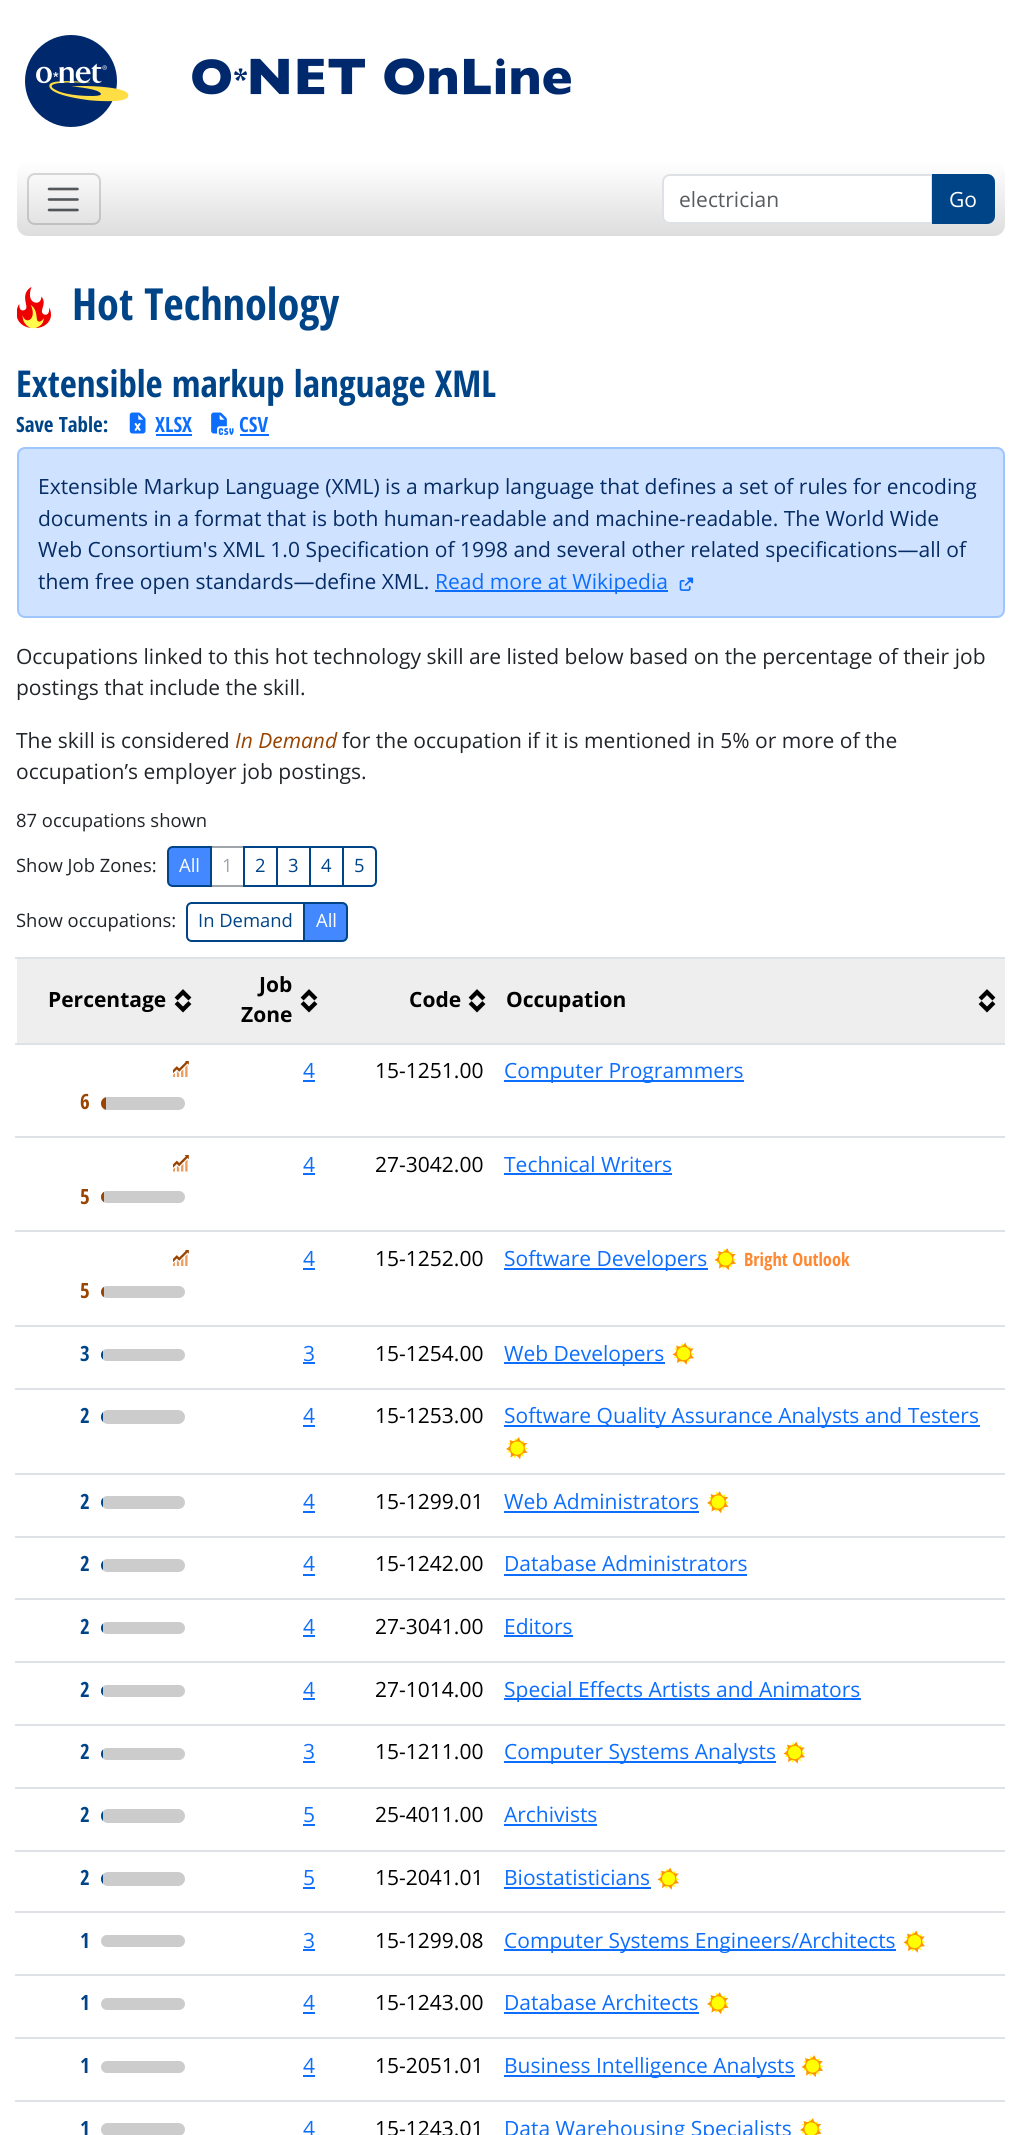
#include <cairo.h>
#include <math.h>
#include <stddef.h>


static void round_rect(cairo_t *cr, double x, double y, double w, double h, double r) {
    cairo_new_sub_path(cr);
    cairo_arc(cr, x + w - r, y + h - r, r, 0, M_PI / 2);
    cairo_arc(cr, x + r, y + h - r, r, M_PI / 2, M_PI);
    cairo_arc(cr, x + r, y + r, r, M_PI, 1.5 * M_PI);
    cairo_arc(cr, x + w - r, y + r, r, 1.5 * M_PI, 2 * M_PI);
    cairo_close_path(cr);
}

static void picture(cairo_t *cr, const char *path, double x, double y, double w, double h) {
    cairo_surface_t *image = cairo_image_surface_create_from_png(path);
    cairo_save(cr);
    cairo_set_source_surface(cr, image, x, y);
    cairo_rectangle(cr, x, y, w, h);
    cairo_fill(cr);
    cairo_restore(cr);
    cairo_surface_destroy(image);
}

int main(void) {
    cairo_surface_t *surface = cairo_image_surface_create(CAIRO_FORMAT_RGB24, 1020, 2135);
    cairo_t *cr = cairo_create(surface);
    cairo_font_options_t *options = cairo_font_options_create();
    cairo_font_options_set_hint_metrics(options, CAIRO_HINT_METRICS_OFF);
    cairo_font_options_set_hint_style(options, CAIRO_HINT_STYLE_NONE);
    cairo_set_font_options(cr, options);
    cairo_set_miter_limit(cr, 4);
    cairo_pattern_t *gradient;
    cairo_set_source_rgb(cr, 1, 1, 1);
    cairo_paint(cr);
    picture(cr, "img1.png", 25, 35, 546, 92);
    gradient = cairo_pattern_create_linear(511, 162, 511, 236);
    cairo_pattern_add_color_stop_rgba(gradient, 0, 1, 1, 1, 1);
    cairo_pattern_add_color_stop_rgba(gradient, 1, 0.867, 0.867, 0.867, 1);
    cairo_set_source(cr, gradient);
    cairo_pattern_destroy(gradient);
    round_rect(cr, 17, 162, 988, 74, 11);
    cairo_fill(cr);
    round_rect(cr, 28, 174, 72, 50, 7);
    cairo_set_source_rgba(cr, 0, 0, 0, 0.15);
    cairo_stroke(cr);
    cairo_new_path(cr);
    cairo_move_to(cr, 49, 189);
    cairo_line_to(cr, 77.5, 189);
    cairo_move_to(cr, 49, 199.5);
    cairo_line_to(cr, 77.5, 199.5);
    cairo_move_to(cr, 49, 210);
    cairo_line_to(cr, 77.5, 210);
    cairo_set_source_rgba(cr, 0.129, 0.145, 0.161, 0.75);
    cairo_set_line_width(cr, 2.6);
    cairo_set_line_cap(cr, CAIRO_LINE_CAP_ROUND);
    cairo_stroke(cr);
    cairo_set_source_rgb(cr, 1, 1, 1);
    cairo_new_path(cr);
    cairo_move_to(cr, 670, 175);
    cairo_line_to(cr, 932, 175);
    cairo_line_to(cr, 932, 223);
    cairo_line_to(cr, 670, 223);
    cairo_curve_to(cr, 666, 223, 663, 220, 663, 216);
    cairo_line_to(cr, 663, 182);
    cairo_curve_to(cr, 663, 178, 666, 175, 670, 175);
    cairo_close_path(cr);
    cairo_fill_preserve(cr);
    cairo_set_source_rgb(cr, 0.871, 0.886, 0.902);
    cairo_set_line_width(cr, 2);
    cairo_set_line_cap(cr, CAIRO_LINE_CAP_BUTT);
    cairo_stroke(cr);
    cairo_select_font_face(cr, "Open Sans", CAIRO_FONT_SLANT_NORMAL, CAIRO_FONT_WEIGHT_NORMAL);
    cairo_set_font_size(cr, 21);
    cairo_set_source_rgb(cr, 0.349, 0.361, 0.373);
    cairo_move_to(cr, 679, 207);
    cairo_show_text(cr, "electrician");
    cairo_set_source_rgb(cr, 0, 0.267, 0.533);
    cairo_new_path(cr);
    cairo_move_to(cr, 933, 175);
    cairo_line_to(cr, 987, 175);
    cairo_curve_to(cr, 991, 175, 994, 178, 994, 182);
    cairo_line_to(cr, 994, 216);
    cairo_curve_to(cr, 994, 220, 991, 223, 987, 223);
    cairo_line_to(cr, 933, 223);
    cairo_close_path(cr);
    cairo_fill_preserve(cr);
    cairo_stroke(cr);
    cairo_set_source_rgb(cr, 1, 1, 1);
    cairo_move_to(cr, 949, 207);
    cairo_show_text(cr, "Go");
    picture(cr, "img2.png", 17, 287, 34, 42);
    cairo_select_font_face(cr, "Open Sans Condensed", CAIRO_FONT_SLANT_NORMAL, CAIRO_FONT_WEIGHT_BOLD);
    cairo_set_font_size(cr, 44.25);
    cairo_set_source_rgb(cr, 0, 0.267, 0.533);
    cairo_move_to(cr, 72, 320);
    cairo_show_text(cr, "Hot Technology");
    cairo_set_font_size(cr, 37);
    cairo_move_to(cr, 16, 397);
    cairo_show_text(cr, "Extensible markup language XML");
    cairo_set_font_size(cr, 21);
    cairo_move_to(cr, 16, 432);
    cairo_show_text(cr, "Save Table:");
    picture(cr, "img3.png", 129, 412, 17, 22);
    cairo_set_source_rgb(cr, 0.051, 0.431, 0.992);
    cairo_move_to(cr, 155, 432);
    cairo_show_text(cr, "XLSX");
    cairo_rectangle(cr, 156, 434, 36, 2);
    cairo_fill(cr);
    picture(cr, "img4.png", 211, 412, 23, 23);
    cairo_move_to(cr, 239, 432);
    cairo_show_text(cr, "CSV");
    cairo_rectangle(cr, 240, 434, 29, 2);
    cairo_fill(cr);
    cairo_set_source_rgb(cr, 0.812, 0.886, 1);
    round_rect(cr, 18, 448, 986, 169, 7);
    cairo_fill_preserve(cr);
    cairo_set_source_rgb(cr, 0.62, 0.773, 0.996);
    cairo_stroke(cr);
    cairo_select_font_face(cr, "Open Sans", CAIRO_FONT_SLANT_NORMAL, CAIRO_FONT_WEIGHT_NORMAL);
    cairo_set_source_rgb(cr, 0.02, 0.173, 0.396);
    cairo_move_to(cr, 38, 494);
    cairo_show_text(cr, "Extensible Markup Language (XML) is a markup language that defines a set of rules for encoding");
    cairo_move_to(cr, 38, 526);
    cairo_show_text(cr, "documents in a format that is both human-readable and machine-readable. The World Wide");
    cairo_move_to(cr, 38, 557);
    cairo_show_text(cr, "Web Consortium's XML 1.0 Specification of 1998 and several other related specifications—all of");
    cairo_move_to(cr, 38, 589);
    cairo_show_text(cr, "them free open standards—define XML.");
    cairo_set_source_rgb(cr, 0.051, 0.431, 0.992);
    cairo_rectangle(cr, 435, 590, 233, 2);
    cairo_fill(cr);
    cairo_move_to(cr, 435, 589);
    cairo_show_text(cr, "Read more at Wikipedia");
    picture(cr, "img5.png", 679, 577, 15, 14);
    cairo_set_source_rgb(cr, 0.129, 0.145, 0.161);
    cairo_move_to(cr, 16, 664);
    cairo_show_text(cr, "Occupations linked to this hot technology skill are listed below based on the percentage of their job");
    cairo_move_to(cr, 16, 695);
    cairo_show_text(cr, "postings that include the skill.");
    cairo_move_to(cr, 16, 748);
    cairo_show_text(cr, "The skill is considered");
    cairo_select_font_face(cr, "Open Sans", CAIRO_FONT_SLANT_ITALIC, CAIRO_FONT_WEIGHT_NORMAL);
    cairo_set_source_rgb(cr, 0.6, 0.267, 0);
    cairo_move_to(cr, 235, 748);
    cairo_show_text(cr, "In Demand");
    cairo_select_font_face(cr, "Open Sans", CAIRO_FONT_SLANT_NORMAL, CAIRO_FONT_WEIGHT_NORMAL);
    cairo_set_source_rgb(cr, 0.129, 0.145, 0.161);
    cairo_move_to(cr, 342, 748);
    cairo_show_text(cr, "for the occupation if it is mentioned in 5% or more of the");
    cairo_move_to(cr, 16, 779);
    cairo_show_text(cr, "occupation’s employer job postings.");
    cairo_set_font_size(cr, 18.4);
    cairo_move_to(cr, 16, 827);
    cairo_show_text(cr, "87 occupations shown");
    cairo_move_to(cr, 16, 872);
    cairo_show_text(cr, "Show Job Zones:");
    cairo_rectangle(cr, 211, 847, 33, 39);
    cairo_set_source_rgb(cr, 0.624, 0.647, 0.671);
    cairo_stroke(cr);
    cairo_set_source_rgb(cr, 0.267, 0.533, 1);
    cairo_new_path(cr);
    cairo_move_to(cr, 173, 847);
    cairo_line_to(cr, 211, 847);
    cairo_line_to(cr, 211, 886);
    cairo_line_to(cr, 173, 886);
    cairo_curve_to(cr, 170, 886, 168, 884, 168, 881);
    cairo_line_to(cr, 168, 852);
    cairo_curve_to(cr, 168, 849, 170, 847, 173, 847);
    cairo_close_path(cr);
    cairo_fill_preserve(cr);
    cairo_set_source_rgb(cr, 0, 0.267, 0.533);
    cairo_stroke(cr);
    cairo_set_source_rgb(cr, 1, 1, 1);
    cairo_move_to(cr, 179, 872);
    cairo_show_text(cr, "All");
    cairo_set_source_rgb(cr, 0.624, 0.647, 0.671);
    cairo_move_to(cr, 222, 872);
    cairo_show_text(cr, "1");
    cairo_rectangle(cr, 244, 847, 33, 39);
    cairo_set_source_rgb(cr, 0, 0.267, 0.533);
    cairo_stroke(cr);
    cairo_move_to(cr, 255, 872);
    cairo_show_text(cr, "2");
    cairo_rectangle(cr, 277, 847, 33, 39);
    cairo_stroke(cr);
    cairo_move_to(cr, 288, 872);
    cairo_show_text(cr, "3");
    cairo_rectangle(cr, 310, 847, 33, 39);
    cairo_stroke(cr);
    cairo_move_to(cr, 321, 872);
    cairo_show_text(cr, "4");
    cairo_new_path(cr);
    cairo_move_to(cr, 343, 847);
    cairo_line_to(cr, 371, 847);
    cairo_curve_to(cr, 374, 847, 376, 849, 376, 852);
    cairo_line_to(cr, 376, 881);
    cairo_curve_to(cr, 376, 884, 374, 886, 371, 886);
    cairo_line_to(cr, 343, 886);
    cairo_close_path(cr);
    cairo_stroke(cr);
    cairo_move_to(cr, 354, 872);
    cairo_show_text(cr, "5");
    cairo_set_source_rgb(cr, 0.129, 0.145, 0.161);
    cairo_move_to(cr, 16, 927);
    cairo_show_text(cr, "Show occupations:");
    cairo_new_path(cr);
    cairo_move_to(cr, 192, 903);
    cairo_line_to(cr, 304, 903);
    cairo_line_to(cr, 304, 941);
    cairo_line_to(cr, 192, 941);
    cairo_curve_to(cr, 189, 941, 187, 939, 187, 936);
    cairo_line_to(cr, 187, 908);
    cairo_curve_to(cr, 187, 905, 189, 903, 192, 903);
    cairo_close_path(cr);
    cairo_set_source_rgb(cr, 0, 0.267, 0.533);
    cairo_stroke(cr);
    cairo_move_to(cr, 198, 927);
    cairo_show_text(cr, "In Demand");
    cairo_set_source_rgb(cr, 0.267, 0.533, 1);
    cairo_new_path(cr);
    cairo_move_to(cr, 304, 903);
    cairo_line_to(cr, 342, 903);
    cairo_curve_to(cr, 345, 903, 347, 905, 347, 908);
    cairo_line_to(cr, 347, 936);
    cairo_curve_to(cr, 347, 939, 345, 941, 342, 941);
    cairo_line_to(cr, 304, 941);
    cairo_close_path(cr);
    cairo_fill_preserve(cr);
    cairo_set_source_rgb(cr, 0, 0.267, 0.533);
    cairo_stroke(cr);
    cairo_set_source_rgb(cr, 1, 1, 1);
    cairo_move_to(cr, 316, 927);
    cairo_show_text(cr, "All");
    cairo_set_source_rgb(cr, 0.933, 0.933, 0.933);
    cairo_rectangle(cr, 17, 959, 988, 84);
    cairo_fill(cr);
    picture(cr, "img6.png", 174, 989, 18, 24);
    cairo_select_font_face(cr, "Open Sans", CAIRO_FONT_SLANT_NORMAL, CAIRO_FONT_WEIGHT_BOLD);
    cairo_set_font_size(cr, 21);
    cairo_set_source_rgb(cr, 0, 0, 0);
    cairo_move_to(cr, 48, 1007);
    cairo_show_text(cr, "Percentage");
    picture(cr, "img6.png", 300, 989, 18, 24);
    cairo_move_to(cr, 259, 992);
    cairo_show_text(cr, "Job");
    cairo_move_to(cr, 241, 1022);
    cairo_show_text(cr, "Zone");
    picture(cr, "img6.png", 468, 989, 18, 24);
    cairo_move_to(cr, 409, 1007);
    cairo_show_text(cr, "Code");
    picture(cr, "img6.png", 978, 989, 18, 24);
    cairo_set_source_rgb(cr, 0.871, 0.886, 0.902);
    cairo_rectangle(cr, 15, 957, 990, 2);
    cairo_fill(cr);
    cairo_rectangle(cr, 15, 1043, 990, 2);
    cairo_fill(cr);
    cairo_set_source_rgb(cr, 0, 0, 0);
    cairo_move_to(cr, 506, 1007);
    cairo_show_text(cr, "Occupation");
    cairo_select_font_face(cr, "Open Sans", CAIRO_FONT_SLANT_NORMAL, CAIRO_FONT_WEIGHT_NORMAL);
    cairo_set_source_rgb(cr, 0.051, 0.431, 0.992);
    cairo_move_to(cr, 303, 1078);
    cairo_show_text(cr, "4");
    cairo_rectangle(cr, 303, 1080, 12, 2);
    cairo_fill(cr);
    cairo_set_source_rgb(cr, 0, 0, 0);
    cairo_move_to(cr, 375, 1078);
    cairo_show_text(cr, "15-1251.00");
    cairo_set_source_rgb(cr, 0.871, 0.886, 0.902);
    cairo_rectangle(cr, 15, 1136, 990, 2);
    cairo_fill(cr);
    cairo_set_source_rgb(cr, 0.051, 0.431, 0.992);
    cairo_rectangle(cr, 504, 1080, 240, 2);
    cairo_fill(cr);
    cairo_move_to(cr, 504, 1078);
    cairo_show_text(cr, "Computer Programmers");
    picture(cr, "img7.png", 173, 1061, 16, 16);
    cairo_select_font_face(cr, "Open Sans Condensed", CAIRO_FONT_SLANT_NORMAL, CAIRO_FONT_WEIGHT_BOLD);
    cairo_set_source_rgb(cr, 0.6, 0.267, 0);
    cairo_move_to(cr, 80, 1109);
    cairo_show_text(cr, "6");
    cairo_set_source_rgb(cr, 0.8, 0.8, 0.8);
    round_rect(cr, 101, 1097, 84, 13, 6.5);
    cairo_fill(cr);
    cairo_save(cr);
    round_rect(cr, 101, 1097, 84, 13, 6.5);
    cairo_clip(cr);
    cairo_set_source_rgb(cr, 0.6, 0.267, 0);
    cairo_rectangle(cr, 101, 1097, 5, 13);
    cairo_fill(cr);
    cairo_restore(cr);
    cairo_select_font_face(cr, "Open Sans", CAIRO_FONT_SLANT_NORMAL, CAIRO_FONT_WEIGHT_NORMAL);
    cairo_set_source_rgb(cr, 0.051, 0.431, 0.992);
    cairo_move_to(cr, 303, 1172);
    cairo_show_text(cr, "4");
    cairo_rectangle(cr, 303, 1173, 12, 2);
    cairo_fill(cr);
    cairo_set_source_rgb(cr, 0, 0, 0);
    cairo_move_to(cr, 375, 1172);
    cairo_show_text(cr, "27-3042.00");
    cairo_set_source_rgb(cr, 0.871, 0.886, 0.902);
    cairo_rectangle(cr, 15, 1230, 990, 2);
    cairo_fill(cr);
    cairo_set_source_rgb(cr, 0.051, 0.431, 0.992);
    cairo_move_to(cr, 504, 1172);
    cairo_show_text(cr, "Technical Writers");
    cairo_rectangle(cr, 504, 1173, 168, 2);
    cairo_fill(cr);
    picture(cr, "img8.png", 173, 1155, 16, 17);
    cairo_select_font_face(cr, "Open Sans Condensed", CAIRO_FONT_SLANT_NORMAL, CAIRO_FONT_WEIGHT_BOLD);
    cairo_set_source_rgb(cr, 0.6, 0.267, 0);
    cairo_move_to(cr, 80, 1204);
    cairo_show_text(cr, "5");
    cairo_set_source_rgb(cr, 0.8, 0.8, 0.8);
    round_rect(cr, 101, 1191, 84, 12, 6);
    cairo_fill(cr);
    cairo_save(cr);
    round_rect(cr, 101, 1191, 84, 12, 6);
    cairo_clip(cr);
    cairo_set_source_rgb(cr, 0.6, 0.267, 0);
    cairo_rectangle(cr, 101, 1191, 3, 12);
    cairo_fill(cr);
    cairo_restore(cr);
    cairo_select_font_face(cr, "Open Sans", CAIRO_FONT_SLANT_NORMAL, CAIRO_FONT_WEIGHT_NORMAL);
    cairo_set_source_rgb(cr, 0.051, 0.431, 0.992);
    cairo_move_to(cr, 303, 1266);
    cairo_show_text(cr, "4");
    cairo_rectangle(cr, 303, 1268, 12, 2);
    cairo_fill(cr);
    cairo_set_source_rgb(cr, 0, 0, 0);
    cairo_move_to(cr, 375, 1266);
    cairo_show_text(cr, "15-1252.00");
    cairo_set_source_rgb(cr, 0.871, 0.886, 0.902);
    cairo_rectangle(cr, 15, 1325, 990, 2);
    cairo_fill(cr);
    cairo_set_source_rgb(cr, 0.051, 0.431, 0.992);
    cairo_rectangle(cr, 504, 1268, 204, 2);
    cairo_fill(cr);
    cairo_move_to(cr, 504, 1266);
    cairo_show_text(cr, "Software Developers");
    picture(cr, "img9.png", 714, 1248, 22, 23);
    cairo_select_font_face(cr, "Open Sans Condensed", CAIRO_FONT_SLANT_NORMAL, CAIRO_FONT_WEIGHT_BOLD);
    cairo_set_font_size(cr, 18.4);
    cairo_set_source_rgb(cr, 1, 0.533, 0.2);
    cairo_move_to(cr, 744, 1266);
    cairo_show_text(cr, "Bright Outlook");
    picture(cr, "img7.png", 173, 1250, 16, 16);
    cairo_set_font_size(cr, 21);
    cairo_set_source_rgb(cr, 0.6, 0.267, 0);
    cairo_move_to(cr, 80, 1298);
    cairo_show_text(cr, "5");
    cairo_set_source_rgb(cr, 0.8, 0.8, 0.8);
    round_rect(cr, 101, 1286, 84, 12, 6);
    cairo_fill(cr);
    cairo_save(cr);
    round_rect(cr, 101, 1286, 84, 12, 6);
    cairo_clip(cr);
    cairo_set_source_rgb(cr, 0.6, 0.267, 0);
    cairo_rectangle(cr, 101, 1286, 3, 12);
    cairo_fill(cr);
    cairo_restore(cr);
    cairo_set_source_rgb(cr, 0, 0.267, 0.533);
    cairo_move_to(cr, 80, 1361);
    cairo_show_text(cr, "3");
    cairo_set_source_rgb(cr, 0.8, 0.8, 0.8);
    round_rect(cr, 101, 1349, 84, 12, 6);
    cairo_fill(cr);
    cairo_save(cr);
    round_rect(cr, 101, 1349, 84, 12, 6);
    cairo_clip(cr);
    cairo_set_source_rgb(cr, 0, 0.267, 0.533);
    cairo_rectangle(cr, 101, 1349, 2, 12);
    cairo_fill(cr);
    cairo_restore(cr);
    cairo_select_font_face(cr, "Open Sans", CAIRO_FONT_SLANT_NORMAL, CAIRO_FONT_WEIGHT_NORMAL);
    cairo_set_source_rgb(cr, 0.051, 0.431, 0.992);
    cairo_move_to(cr, 303, 1361);
    cairo_show_text(cr, "3");
    cairo_rectangle(cr, 303, 1362, 12, 2);
    cairo_fill(cr);
    cairo_set_source_rgb(cr, 0, 0, 0);
    cairo_move_to(cr, 375, 1361);
    cairo_show_text(cr, "15-1254.00");
    cairo_set_source_rgb(cr, 0.871, 0.886, 0.902);
    cairo_rectangle(cr, 15, 1388, 990, 2);
    cairo_fill(cr);
    cairo_set_source_rgb(cr, 0.051, 0.431, 0.992);
    cairo_rectangle(cr, 504, 1362, 161, 2);
    cairo_fill(cr);
    cairo_move_to(cr, 504, 1361);
    cairo_show_text(cr, "Web Developers");
    picture(cr, "img10.png", 672, 1342, 22, 23);
    cairo_select_font_face(cr, "Open Sans Condensed", CAIRO_FONT_SLANT_NORMAL, CAIRO_FONT_WEIGHT_BOLD);
    cairo_set_source_rgb(cr, 0, 0.267, 0.533);
    cairo_move_to(cr, 80, 1423);
    cairo_show_text(cr, "2");
    cairo_set_source_rgb(cr, 0.8, 0.8, 0.8);
    round_rect(cr, 101, 1410, 84, 14, 7);
    cairo_fill(cr);
    cairo_save(cr);
    round_rect(cr, 101, 1410, 84, 14, 7);
    cairo_clip(cr);
    cairo_set_source_rgb(cr, 0, 0.267, 0.533);
    cairo_rectangle(cr, 101, 1410, 2, 14);
    cairo_fill(cr);
    cairo_restore(cr);
    cairo_select_font_face(cr, "Open Sans", CAIRO_FONT_SLANT_NORMAL, CAIRO_FONT_WEIGHT_NORMAL);
    cairo_set_source_rgb(cr, 0.051, 0.431, 0.992);
    cairo_move_to(cr, 303, 1423);
    cairo_show_text(cr, "4");
    cairo_rectangle(cr, 303, 1425, 12, 2);
    cairo_fill(cr);
    cairo_set_source_rgb(cr, 0, 0, 0);
    cairo_move_to(cr, 375, 1423);
    cairo_show_text(cr, "15-1253.00");
    cairo_set_source_rgb(cr, 0.871, 0.886, 0.902);
    cairo_rectangle(cr, 15, 1473, 990, 2);
    cairo_fill(cr);
    cairo_set_source_rgb(cr, 0.051, 0.431, 0.992);
    cairo_rectangle(cr, 504, 1425, 476, 2);
    cairo_fill(cr);
    cairo_move_to(cr, 504, 1423);
    cairo_show_text(cr, "Software Quality Assurance Analysts and Testers");
    picture(cr, "img11.png", 506, 1437, 22, 23);
    cairo_select_font_face(cr, "Open Sans Condensed", CAIRO_FONT_SLANT_NORMAL, CAIRO_FONT_WEIGHT_BOLD);
    cairo_set_source_rgb(cr, 0, 0.267, 0.533);
    cairo_move_to(cr, 80, 1509);
    cairo_show_text(cr, "2");
    cairo_set_source_rgb(cr, 0.8, 0.8, 0.8);
    round_rect(cr, 101, 1496, 84, 13, 6.5);
    cairo_fill(cr);
    cairo_save(cr);
    round_rect(cr, 101, 1496, 84, 13, 6.5);
    cairo_clip(cr);
    cairo_set_source_rgb(cr, 0, 0.267, 0.533);
    cairo_rectangle(cr, 101, 1496, 2, 13);
    cairo_fill(cr);
    cairo_restore(cr);
    cairo_select_font_face(cr, "Open Sans", CAIRO_FONT_SLANT_NORMAL, CAIRO_FONT_WEIGHT_NORMAL);
    cairo_set_source_rgb(cr, 0.051, 0.431, 0.992);
    cairo_move_to(cr, 303, 1509);
    cairo_show_text(cr, "4");
    cairo_rectangle(cr, 303, 1511, 12, 2);
    cairo_fill(cr);
    cairo_set_source_rgb(cr, 0, 0, 0);
    cairo_move_to(cr, 375, 1509);
    cairo_show_text(cr, "15-1299.01");
    cairo_set_source_rgb(cr, 0.871, 0.886, 0.902);
    cairo_rectangle(cr, 15, 1536, 990, 2);
    cairo_fill(cr);
    cairo_set_source_rgb(cr, 0.051, 0.431, 0.992);
    cairo_move_to(cr, 504, 1509);
    cairo_show_text(cr, "Web Administrators");
    cairo_rectangle(cr, 504, 1511, 195, 2);
    cairo_fill(cr);
    picture(cr, "img11.png", 707, 1491, 22, 23);
    cairo_select_font_face(cr, "Open Sans Condensed", CAIRO_FONT_SLANT_NORMAL, CAIRO_FONT_WEIGHT_BOLD);
    cairo_set_source_rgb(cr, 0, 0.267, 0.533);
    cairo_move_to(cr, 80, 1571);
    cairo_show_text(cr, "2");
    cairo_set_source_rgb(cr, 0.8, 0.8, 0.8);
    round_rect(cr, 101, 1559, 84, 13, 6.5);
    cairo_fill(cr);
    cairo_save(cr);
    round_rect(cr, 101, 1559, 84, 13, 6.5);
    cairo_clip(cr);
    cairo_set_source_rgb(cr, 0, 0.267, 0.533);
    cairo_rectangle(cr, 101, 1559, 2, 13);
    cairo_fill(cr);
    cairo_restore(cr);
    cairo_select_font_face(cr, "Open Sans", CAIRO_FONT_SLANT_NORMAL, CAIRO_FONT_WEIGHT_NORMAL);
    cairo_set_source_rgb(cr, 0.051, 0.431, 0.992);
    cairo_move_to(cr, 303, 1571);
    cairo_show_text(cr, "4");
    cairo_rectangle(cr, 303, 1574, 12, 2);
    cairo_fill(cr);
    cairo_set_source_rgb(cr, 0, 0, 0);
    cairo_move_to(cr, 375, 1571);
    cairo_show_text(cr, "15-1242.00");
    cairo_set_source_rgb(cr, 0.871, 0.886, 0.902);
    cairo_rectangle(cr, 15, 1598, 990, 2);
    cairo_fill(cr);
    cairo_set_source_rgb(cr, 0.051, 0.431, 0.992);
    cairo_move_to(cr, 504, 1571);
    cairo_show_text(cr, "Database Administrators");
    cairo_rectangle(cr, 504, 1574, 243, 2);
    cairo_fill(cr);
    cairo_select_font_face(cr, "Open Sans Condensed", CAIRO_FONT_SLANT_NORMAL, CAIRO_FONT_WEIGHT_BOLD);
    cairo_set_source_rgb(cr, 0, 0.267, 0.533);
    cairo_move_to(cr, 80, 1634);
    cairo_show_text(cr, "2");
    cairo_set_source_rgb(cr, 0.8, 0.8, 0.8);
    round_rect(cr, 101, 1622, 84, 12, 6);
    cairo_fill(cr);
    cairo_save(cr);
    round_rect(cr, 101, 1622, 84, 12, 6);
    cairo_clip(cr);
    cairo_set_source_rgb(cr, 0, 0.267, 0.533);
    cairo_rectangle(cr, 101, 1622, 2, 12);
    cairo_fill(cr);
    cairo_restore(cr);
    cairo_select_font_face(cr, "Open Sans", CAIRO_FONT_SLANT_NORMAL, CAIRO_FONT_WEIGHT_NORMAL);
    cairo_set_source_rgb(cr, 0.051, 0.431, 0.992);
    cairo_move_to(cr, 303, 1634);
    cairo_show_text(cr, "4");
    cairo_rectangle(cr, 303, 1635, 12, 2);
    cairo_fill(cr);
    cairo_set_source_rgb(cr, 0, 0, 0);
    cairo_move_to(cr, 375, 1634);
    cairo_show_text(cr, "27-3041.00");
    cairo_set_source_rgb(cr, 0.871, 0.886, 0.902);
    cairo_rectangle(cr, 15, 1661, 990, 2);
    cairo_fill(cr);
    cairo_set_source_rgb(cr, 0.051, 0.431, 0.992);
    cairo_move_to(cr, 504, 1634);
    cairo_show_text(cr, "Editors");
    cairo_rectangle(cr, 504, 1635, 69, 2);
    cairo_fill(cr);
    cairo_select_font_face(cr, "Open Sans Condensed", CAIRO_FONT_SLANT_NORMAL, CAIRO_FONT_WEIGHT_BOLD);
    cairo_set_source_rgb(cr, 0, 0.267, 0.533);
    cairo_move_to(cr, 80, 1697);
    cairo_show_text(cr, "2");
    cairo_set_source_rgb(cr, 0.8, 0.8, 0.8);
    round_rect(cr, 101, 1685, 84, 12, 6);
    cairo_fill(cr);
    cairo_save(cr);
    round_rect(cr, 101, 1685, 84, 12, 6);
    cairo_clip(cr);
    cairo_set_source_rgb(cr, 0, 0.267, 0.533);
    cairo_rectangle(cr, 101, 1685, 2, 12);
    cairo_fill(cr);
    cairo_restore(cr);
    cairo_select_font_face(cr, "Open Sans", CAIRO_FONT_SLANT_NORMAL, CAIRO_FONT_WEIGHT_NORMAL);
    cairo_set_source_rgb(cr, 0.051, 0.431, 0.992);
    cairo_move_to(cr, 303, 1697);
    cairo_show_text(cr, "4");
    cairo_rectangle(cr, 303, 1698, 12, 2);
    cairo_fill(cr);
    cairo_set_source_rgb(cr, 0, 0, 0);
    cairo_move_to(cr, 375, 1697);
    cairo_show_text(cr, "27-1014.00");
    cairo_set_source_rgb(cr, 0.871, 0.886, 0.902);
    cairo_rectangle(cr, 15, 1724, 990, 2);
    cairo_fill(cr);
    cairo_set_source_rgb(cr, 0.051, 0.431, 0.992);
    cairo_rectangle(cr, 504, 1698, 357, 2);
    cairo_fill(cr);
    cairo_move_to(cr, 504, 1697);
    cairo_show_text(cr, "Special Effects Artists and Animators");
    cairo_select_font_face(cr, "Open Sans Condensed", CAIRO_FONT_SLANT_NORMAL, CAIRO_FONT_WEIGHT_BOLD);
    cairo_set_source_rgb(cr, 0, 0.267, 0.533);
    cairo_move_to(cr, 80, 1759);
    cairo_show_text(cr, "2");
    cairo_set_source_rgb(cr, 0.8, 0.8, 0.8);
    round_rect(cr, 101, 1748, 84, 12, 6);
    cairo_fill(cr);
    cairo_save(cr);
    round_rect(cr, 101, 1748, 84, 12, 6);
    cairo_clip(cr);
    cairo_set_source_rgb(cr, 0, 0.267, 0.533);
    cairo_rectangle(cr, 101, 1748, 2, 12);
    cairo_fill(cr);
    cairo_restore(cr);
    cairo_select_font_face(cr, "Open Sans", CAIRO_FONT_SLANT_NORMAL, CAIRO_FONT_WEIGHT_NORMAL);
    cairo_set_source_rgb(cr, 0.051, 0.431, 0.992);
    cairo_move_to(cr, 303, 1759);
    cairo_show_text(cr, "3");
    cairo_rectangle(cr, 303, 1761, 12, 2);
    cairo_fill(cr);
    cairo_set_source_rgb(cr, 0, 0, 0);
    cairo_move_to(cr, 375, 1759);
    cairo_show_text(cr, "15-1211.00");
    cairo_set_source_rgb(cr, 0.871, 0.886, 0.902);
    cairo_rectangle(cr, 15, 1787, 990, 2);
    cairo_fill(cr);
    cairo_set_source_rgb(cr, 0.051, 0.431, 0.992);
    cairo_rectangle(cr, 504, 1761, 272, 2);
    cairo_fill(cr);
    cairo_move_to(cr, 504, 1759);
    cairo_show_text(cr, "Computer Systems Analysts");
    picture(cr, "img10.png", 783, 1741, 22, 23);
    cairo_select_font_face(cr, "Open Sans Condensed", CAIRO_FONT_SLANT_NORMAL, CAIRO_FONT_WEIGHT_BOLD);
    cairo_set_source_rgb(cr, 0, 0.267, 0.533);
    cairo_move_to(cr, 80, 1822);
    cairo_show_text(cr, "2");
    cairo_set_source_rgb(cr, 0.8, 0.8, 0.8);
    round_rect(cr, 101, 1809, 84, 14, 7);
    cairo_fill(cr);
    cairo_save(cr);
    round_rect(cr, 101, 1809, 84, 14, 7);
    cairo_clip(cr);
    cairo_set_source_rgb(cr, 0, 0.267, 0.533);
    cairo_rectangle(cr, 101, 1809, 2, 14);
    cairo_fill(cr);
    cairo_restore(cr);
    cairo_select_font_face(cr, "Open Sans", CAIRO_FONT_SLANT_NORMAL, CAIRO_FONT_WEIGHT_NORMAL);
    cairo_set_source_rgb(cr, 0.051, 0.431, 0.992);
    cairo_move_to(cr, 303, 1822);
    cairo_show_text(cr, "5");
    cairo_rectangle(cr, 303, 1824, 12, 2);
    cairo_fill(cr);
    cairo_set_source_rgb(cr, 0, 0, 0);
    cairo_move_to(cr, 375, 1822);
    cairo_show_text(cr, "25-4011.00");
    cairo_set_source_rgb(cr, 0.871, 0.886, 0.902);
    cairo_rectangle(cr, 15, 1850, 990, 2);
    cairo_fill(cr);
    cairo_set_source_rgb(cr, 0.051, 0.431, 0.992);
    cairo_move_to(cr, 504, 1822);
    cairo_show_text(cr, "Archivists");
    cairo_rectangle(cr, 504, 1824, 93, 2);
    cairo_fill(cr);
    cairo_select_font_face(cr, "Open Sans Condensed", CAIRO_FONT_SLANT_NORMAL, CAIRO_FONT_WEIGHT_BOLD);
    cairo_set_source_rgb(cr, 0, 0.267, 0.533);
    cairo_move_to(cr, 80, 1885);
    cairo_show_text(cr, "2");
    cairo_set_source_rgb(cr, 0.8, 0.8, 0.8);
    round_rect(cr, 101, 1872, 84, 14, 7);
    cairo_fill(cr);
    cairo_save(cr);
    round_rect(cr, 101, 1872, 84, 14, 7);
    cairo_clip(cr);
    cairo_set_source_rgb(cr, 0, 0.267, 0.533);
    cairo_rectangle(cr, 101, 1872, 2, 14);
    cairo_fill(cr);
    cairo_restore(cr);
    cairo_select_font_face(cr, "Open Sans", CAIRO_FONT_SLANT_NORMAL, CAIRO_FONT_WEIGHT_NORMAL);
    cairo_set_source_rgb(cr, 0.051, 0.431, 0.992);
    cairo_move_to(cr, 303, 1885);
    cairo_show_text(cr, "5");
    cairo_rectangle(cr, 303, 1887, 12, 2);
    cairo_fill(cr);
    cairo_set_source_rgb(cr, 0, 0, 0);
    cairo_move_to(cr, 375, 1885);
    cairo_show_text(cr, "15-2041.01");
    cairo_set_source_rgb(cr, 0.871, 0.886, 0.902);
    cairo_rectangle(cr, 15, 1911, 990, 2);
    cairo_fill(cr);
    cairo_set_source_rgb(cr, 0.051, 0.431, 0.992);
    cairo_move_to(cr, 504, 1885);
    cairo_show_text(cr, "Biostatisticians");
    cairo_rectangle(cr, 504, 1887, 147, 2);
    cairo_fill(cr);
    picture(cr, "img10.png", 657, 1867, 22, 23);
    cairo_select_font_face(cr, "Open Sans Condensed", CAIRO_FONT_SLANT_NORMAL, CAIRO_FONT_WEIGHT_BOLD);
    cairo_set_source_rgb(cr, 0, 0.267, 0.533);
    cairo_move_to(cr, 80, 1948);
    cairo_show_text(cr, "1");
    cairo_set_source_rgb(cr, 0.8, 0.8, 0.8);
    round_rect(cr, 101, 1935, 84, 12, 6);
    cairo_fill(cr);
    cairo_select_font_face(cr, "Open Sans", CAIRO_FONT_SLANT_NORMAL, CAIRO_FONT_WEIGHT_NORMAL);
    cairo_set_source_rgb(cr, 0.051, 0.431, 0.992);
    cairo_move_to(cr, 303, 1948);
    cairo_show_text(cr, "3");
    cairo_rectangle(cr, 303, 1949, 12, 2);
    cairo_fill(cr);
    cairo_set_source_rgb(cr, 0, 0, 0);
    cairo_move_to(cr, 375, 1948);
    cairo_show_text(cr, "15-1299.08");
    cairo_set_source_rgb(cr, 0.871, 0.886, 0.902);
    cairo_rectangle(cr, 15, 1974, 990, 2);
    cairo_fill(cr);
    cairo_set_source_rgb(cr, 0.051, 0.431, 0.992);
    cairo_rectangle(cr, 504, 1949, 392, 2);
    cairo_fill(cr);
    cairo_move_to(cr, 504, 1948);
    cairo_show_text(cr, "Computer Systems Engineers/Architects");
    picture(cr, "img10.png", 903, 1930, 22, 23);
    cairo_select_font_face(cr, "Open Sans Condensed", CAIRO_FONT_SLANT_NORMAL, CAIRO_FONT_WEIGHT_BOLD);
    cairo_set_source_rgb(cr, 0, 0.267, 0.533);
    cairo_move_to(cr, 80, 2010);
    cairo_show_text(cr, "1");
    cairo_set_source_rgb(cr, 0.8, 0.8, 0.8);
    round_rect(cr, 101, 1998, 84, 12, 6);
    cairo_fill(cr);
    cairo_select_font_face(cr, "Open Sans", CAIRO_FONT_SLANT_NORMAL, CAIRO_FONT_WEIGHT_NORMAL);
    cairo_set_source_rgb(cr, 0.051, 0.431, 0.992);
    cairo_move_to(cr, 303, 2010);
    cairo_show_text(cr, "4");
    cairo_rectangle(cr, 303, 2012, 12, 2);
    cairo_fill(cr);
    cairo_set_source_rgb(cr, 0, 0, 0);
    cairo_move_to(cr, 375, 2010);
    cairo_show_text(cr, "15-1243.00");
    cairo_set_source_rgb(cr, 0.871, 0.886, 0.902);
    cairo_rectangle(cr, 15, 2037, 990, 2);
    cairo_fill(cr);
    cairo_set_source_rgb(cr, 0.051, 0.431, 0.992);
    cairo_move_to(cr, 504, 2010);
    cairo_show_text(cr, "Database Architects");
    cairo_rectangle(cr, 504, 2012, 195, 2);
    cairo_fill(cr);
    picture(cr, "img11.png", 707, 1992, 22, 23);
    cairo_select_font_face(cr, "Open Sans Condensed", CAIRO_FONT_SLANT_NORMAL, CAIRO_FONT_WEIGHT_BOLD);
    cairo_set_source_rgb(cr, 0, 0.267, 0.533);
    cairo_move_to(cr, 80, 2073);
    cairo_show_text(cr, "1");
    cairo_set_source_rgb(cr, 0.8, 0.8, 0.8);
    round_rect(cr, 101, 2061, 84, 12, 6);
    cairo_fill(cr);
    cairo_select_font_face(cr, "Open Sans", CAIRO_FONT_SLANT_NORMAL, CAIRO_FONT_WEIGHT_NORMAL);
    cairo_set_source_rgb(cr, 0.051, 0.431, 0.992);
    cairo_move_to(cr, 303, 2073);
    cairo_show_text(cr, "4");
    cairo_rectangle(cr, 303, 2075, 12, 2);
    cairo_fill(cr);
    cairo_set_source_rgb(cr, 0, 0, 0);
    cairo_move_to(cr, 375, 2073);
    cairo_show_text(cr, "15-2051.01");
    cairo_set_source_rgb(cr, 0.871, 0.886, 0.902);
    cairo_rectangle(cr, 15, 2100, 990, 2);
    cairo_fill(cr);
    cairo_set_source_rgb(cr, 0.051, 0.431, 0.992);
    cairo_rectangle(cr, 504, 2075, 291, 2);
    cairo_fill(cr);
    cairo_move_to(cr, 504, 2073);
    cairo_show_text(cr, "Business Intelligence Analysts");
    picture(cr, "img9.png", 801, 2055, 22, 23);
    cairo_select_font_face(cr, "Open Sans Condensed", CAIRO_FONT_SLANT_NORMAL, CAIRO_FONT_WEIGHT_BOLD);
    cairo_set_source_rgb(cr, 0, 0.267, 0.533);
    cairo_move_to(cr, 80, 2136);
    cairo_show_text(cr, "1");
    cairo_set_source_rgb(cr, 0.8, 0.8, 0.8);
    round_rect(cr, 101, 2123, 84, 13, 6.5);
    cairo_fill(cr);
    cairo_select_font_face(cr, "Open Sans", CAIRO_FONT_SLANT_NORMAL, CAIRO_FONT_WEIGHT_NORMAL);
    cairo_set_source_rgb(cr, 0.051, 0.431, 0.992);
    cairo_move_to(cr, 303, 2136);
    cairo_show_text(cr, "4");
    cairo_set_source_rgb(cr, 0, 0, 0);
    cairo_move_to(cr, 375, 2136);
    cairo_show_text(cr, "15-1243.01");
    cairo_set_source_rgb(cr, 0.051, 0.431, 0.992);
    cairo_move_to(cr, 504, 2136);
    cairo_show_text(cr, "Data Warehousing Specialists");
    picture(cr, "img12.png", 800, 2118, 22, 17);
    cairo_surface_write_to_png(surface, "page.png");
    cairo_font_options_destroy(options);
    cairo_destroy(cr);
    cairo_surface_destroy(surface);
    return 0;
}
